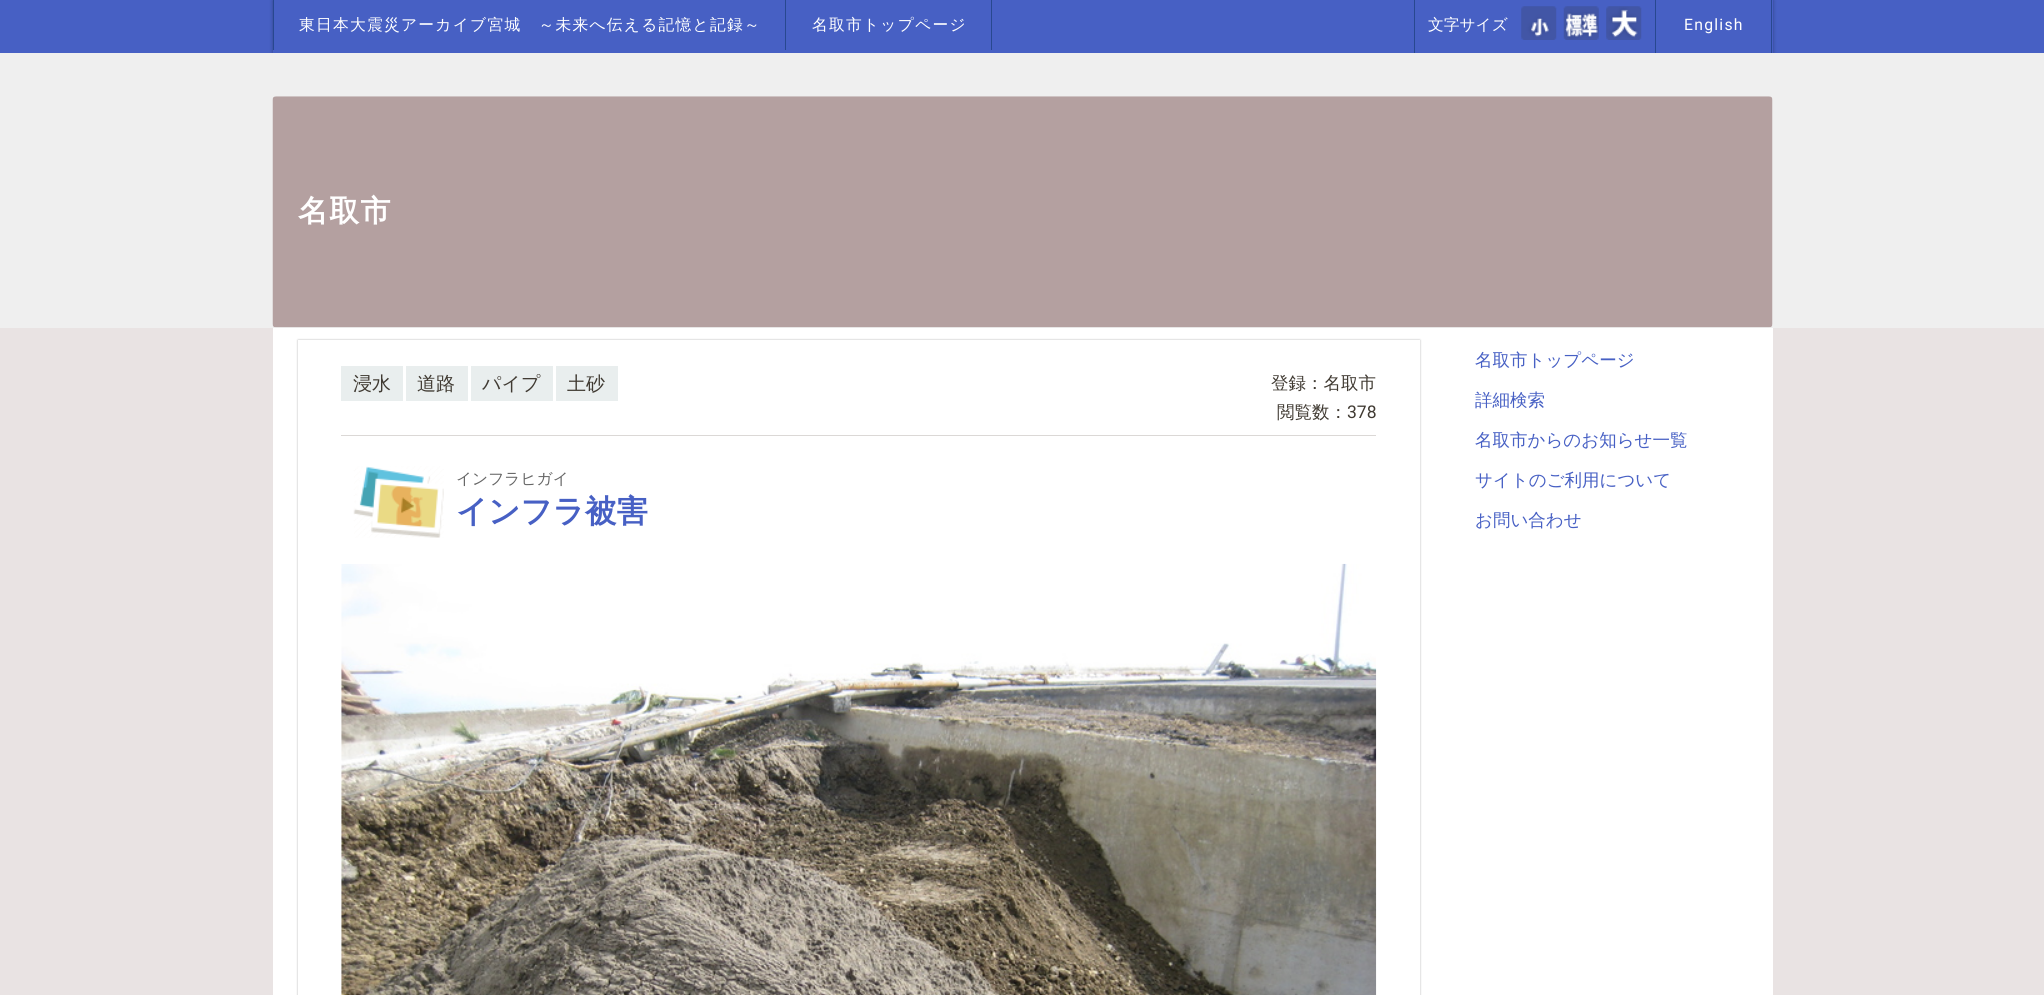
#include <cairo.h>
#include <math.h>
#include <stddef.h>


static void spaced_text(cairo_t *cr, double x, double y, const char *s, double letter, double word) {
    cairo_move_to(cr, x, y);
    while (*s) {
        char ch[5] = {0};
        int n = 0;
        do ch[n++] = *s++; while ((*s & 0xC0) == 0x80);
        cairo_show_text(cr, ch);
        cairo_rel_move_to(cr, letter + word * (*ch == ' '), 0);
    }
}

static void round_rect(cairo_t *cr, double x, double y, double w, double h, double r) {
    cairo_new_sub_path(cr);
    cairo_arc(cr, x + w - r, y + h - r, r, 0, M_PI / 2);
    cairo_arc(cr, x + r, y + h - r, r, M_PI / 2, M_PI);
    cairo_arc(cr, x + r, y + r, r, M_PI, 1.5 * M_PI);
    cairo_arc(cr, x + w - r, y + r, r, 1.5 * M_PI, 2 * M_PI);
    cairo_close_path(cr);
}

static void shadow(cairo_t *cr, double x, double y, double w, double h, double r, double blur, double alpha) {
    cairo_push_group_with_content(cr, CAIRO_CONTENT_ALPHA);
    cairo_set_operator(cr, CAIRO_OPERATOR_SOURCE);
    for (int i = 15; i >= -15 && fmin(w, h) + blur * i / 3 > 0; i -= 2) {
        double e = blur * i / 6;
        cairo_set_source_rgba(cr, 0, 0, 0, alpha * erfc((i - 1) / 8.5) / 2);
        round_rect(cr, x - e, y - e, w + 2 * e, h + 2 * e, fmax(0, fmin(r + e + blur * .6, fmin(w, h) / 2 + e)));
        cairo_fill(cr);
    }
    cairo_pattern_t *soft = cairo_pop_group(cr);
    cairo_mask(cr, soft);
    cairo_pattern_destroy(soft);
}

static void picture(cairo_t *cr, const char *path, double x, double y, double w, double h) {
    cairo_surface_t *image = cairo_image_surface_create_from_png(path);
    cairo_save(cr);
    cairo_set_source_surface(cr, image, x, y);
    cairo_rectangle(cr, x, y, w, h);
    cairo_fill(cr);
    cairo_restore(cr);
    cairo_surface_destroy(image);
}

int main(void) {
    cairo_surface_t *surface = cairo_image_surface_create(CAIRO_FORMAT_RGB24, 2044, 995);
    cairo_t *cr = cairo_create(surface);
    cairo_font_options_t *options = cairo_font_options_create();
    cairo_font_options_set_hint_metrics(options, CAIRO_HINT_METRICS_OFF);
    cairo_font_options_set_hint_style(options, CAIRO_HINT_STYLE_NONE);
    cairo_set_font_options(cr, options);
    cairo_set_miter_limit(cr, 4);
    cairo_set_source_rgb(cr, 0.914, 0.89, 0.89);
    cairo_paint(cr);
    cairo_set_source_rgb(cr, 0.278, 0.376, 0.769);
    cairo_rectangle(cr, 0, 0, 2044, 53);
    cairo_fill(cr);
    cairo_set_source_rgb(cr, 0, 0, 0);
    shadow(cr, 273, 0, 1500, 53, 0, 2, 0.3);
    cairo_set_source_rgb(cr, 0.278, 0.376, 0.769);
    cairo_rectangle(cr, 273, 0, 1500, 53);
    cairo_fill(cr);
    cairo_set_source_rgb(cr, 0.157, 0.282, 0.561);
    cairo_rectangle(cr, 785, 0, 1, 50);
    cairo_fill(cr);
    cairo_rectangle(cr, 273, 0, 1, 50);
    cairo_fill(cr);
    cairo_select_font_face(cr, "WenQuanYi Zen Hei Medium", CAIRO_FONT_SLANT_NORMAL, CAIRO_FONT_WEIGHT_NORMAL);
    cairo_set_font_size(cr, 15.75);
    cairo_set_source_rgb(cr, 1, 1, 1);
    spaced_text(cr, 299, 30, "東日本大震災アーカイブ宮城　～未来へ伝える記憶と記録～", 1.25, 0);
    cairo_set_source_rgb(cr, 0.157, 0.282, 0.561);
    cairo_rectangle(cr, 991, 0, 1, 50);
    cairo_fill(cr);
    cairo_set_source_rgb(cr, 1, 1, 1);
    spaced_text(cr, 812, 30, "名取市トップページ", 1.25, 0);
    cairo_set_source_rgb(cr, 0.157, 0.282, 0.561);
    cairo_rectangle(cr, 1655, 0, 1, 53);
    cairo_fill(cr);
    cairo_rectangle(cr, 1414, 0, 1, 53);
    cairo_fill(cr);
    cairo_set_source_rgb(cr, 1, 1, 1);
    cairo_move_to(cr, 1428, 30);
    cairo_show_text(cr, "文字サイズ");
    picture(cr, "img1.png", 1521, 6, 36, 34);
    picture(cr, "img2.png", 1563, 6, 36, 34);
    picture(cr, "img3.png", 1606, 6, 36, 34);
    cairo_set_source_rgb(cr, 0.157, 0.282, 0.561);
    cairo_rectangle(cr, 1771, 0, 1, 53);
    cairo_fill(cr);
    cairo_select_font_face(cr, "Roboto", CAIRO_FONT_SLANT_NORMAL, CAIRO_FONT_WEIGHT_NORMAL);
    cairo_set_source_rgb(cr, 1, 1, 1);
    spaced_text(cr, 1684, 30, "English", 1.25, 0);
    cairo_set_source_rgb(cr, 0.937, 0.937, 0.937);
    cairo_rectangle(cr, 0, 53, 2044, 275);
    cairo_fill(cr);
    picture(cr, "img4.png", 272, 96, 1501, 232);
    cairo_select_font_face(cr, "WenQuanYi Zen Hei", CAIRO_FONT_SLANT_NORMAL, CAIRO_FONT_WEIGHT_BOLD);
    cairo_set_font_size(cr, 30);
    cairo_set_source_rgb(cr, 1, 1, 1);
    spaced_text(cr, 298, 221, "名取市", 1.25, 0);
    cairo_rectangle(cr, 273, 328, 1500, 667);
    cairo_fill(cr);
    cairo_save(cr);
    cairo_set_fill_rule(cr, CAIRO_FILL_RULE_EVEN_ODD);
    cairo_new_path(cr);
    cairo_move_to(cr, 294, 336);
    cairo_line_to(cr, 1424, 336);
    cairo_line_to(cr, 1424, 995);
    cairo_line_to(cr, 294, 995);
    cairo_close_path(cr);
    cairo_move_to(cr, 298, 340);
    cairo_line_to(cr, 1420, 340);
    cairo_line_to(cr, 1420, 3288);
    cairo_line_to(cr, 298, 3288);
    cairo_close_path(cr);
    cairo_clip(cr);
    cairo_set_source_rgb(cr, 0, 0, 0);
    shadow(cr, 298, 340, 1122, 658, 0, 1, 0.3);
    cairo_restore(cr);
    cairo_set_source_rgb(cr, 0.859, 0.847, 0.839);
    cairo_rectangle(cr, 341, 435, 1035, 1);
    cairo_fill(cr);
    cairo_set_source_rgb(cr, 0.914, 0.933, 0.933);
    cairo_rectangle(cr, 341, 366, 62, 35);
    cairo_fill(cr);
    cairo_select_font_face(cr, "WenQuanYi Zen Hei Medium", CAIRO_FONT_SLANT_NORMAL, CAIRO_FONT_WEIGHT_NORMAL);
    cairo_set_font_size(cr, 19);
    cairo_set_source_rgb(cr, 0.251, 0.227, 0.196);
    cairo_move_to(cr, 353, 390);
    cairo_show_text(cr, "浸水");
    cairo_set_source_rgb(cr, 0.914, 0.933, 0.933);
    cairo_rectangle(cr, 406, 366, 62, 35);
    cairo_fill(cr);
    cairo_set_source_rgb(cr, 0.251, 0.227, 0.196);
    cairo_move_to(cr, 417, 390);
    cairo_show_text(cr, "道路");
    cairo_set_source_rgb(cr, 0.914, 0.933, 0.933);
    cairo_rectangle(cr, 471, 366, 82, 35);
    cairo_fill(cr);
    cairo_set_source_rgb(cr, 0.251, 0.227, 0.196);
    cairo_move_to(cr, 482, 390);
    cairo_show_text(cr, "パイプ");
    cairo_set_source_rgb(cr, 0.914, 0.933, 0.933);
    cairo_rectangle(cr, 556, 366, 62, 35);
    cairo_fill(cr);
    cairo_set_source_rgb(cr, 0.251, 0.227, 0.196);
    cairo_move_to(cr, 567, 390);
    cairo_show_text(cr, "土砂");
    cairo_set_font_size(cr, 17.5);
    cairo_move_to(cr, 1271, 389);
    cairo_show_text(cr, "登録：名取市");
    cairo_move_to(cr, 1277, 418);
    cairo_show_text(cr, "閲覧数：");
    cairo_select_font_face(cr, "Roboto", CAIRO_FONT_SLANT_NORMAL, CAIRO_FONT_WEIGHT_NORMAL);
    cairo_move_to(cr, 1347, 418);
    cairo_show_text(cr, "378");
    picture(cr, "img5.png", 353, 466, 91, 72);
    cairo_select_font_face(cr, "WenQuanYi Zen Hei Medium", CAIRO_FONT_SLANT_NORMAL, CAIRO_FONT_WEIGHT_NORMAL);
    cairo_set_font_size(cr, 15.75);
    cairo_set_source_rgb(cr, 0.4, 0.4, 0.4);
    cairo_move_to(cr, 456, 484);
    cairo_show_text(cr, "インフラヒガイ");
    cairo_select_font_face(cr, "WenQuanYi Zen Hei", CAIRO_FONT_SLANT_NORMAL, CAIRO_FONT_WEIGHT_BOLD);
    cairo_set_font_size(cr, 31.5);
    cairo_set_source_rgb(cr, 0.278, 0.376, 0.769);
    cairo_move_to(cr, 456, 522);
    cairo_show_text(cr, "インフラ被害");
    picture(cr, "img6.png", 341, 563, 1036, 432);
    cairo_select_font_face(cr, "WenQuanYi Zen Hei Medium", CAIRO_FONT_SLANT_NORMAL, CAIRO_FONT_WEIGHT_NORMAL);
    cairo_set_font_size(cr, 17.5);
    cairo_move_to(cr, 1475, 366);
    cairo_show_text(cr, "名取市トップページ");
    cairo_move_to(cr, 1475, 406);
    cairo_show_text(cr, "詳細検索");
    cairo_move_to(cr, 1475, 446);
    cairo_show_text(cr, "名取市からのお知らせ一覧");
    cairo_move_to(cr, 1475, 486);
    cairo_show_text(cr, "サイトのご利用について");
    cairo_move_to(cr, 1475, 526);
    cairo_show_text(cr, "お問い合わせ");
    cairo_surface_write_to_png(surface, "page.png");
    cairo_font_options_destroy(options);
    cairo_destroy(cr);
    cairo_surface_destroy(surface);
    return 0;
}
